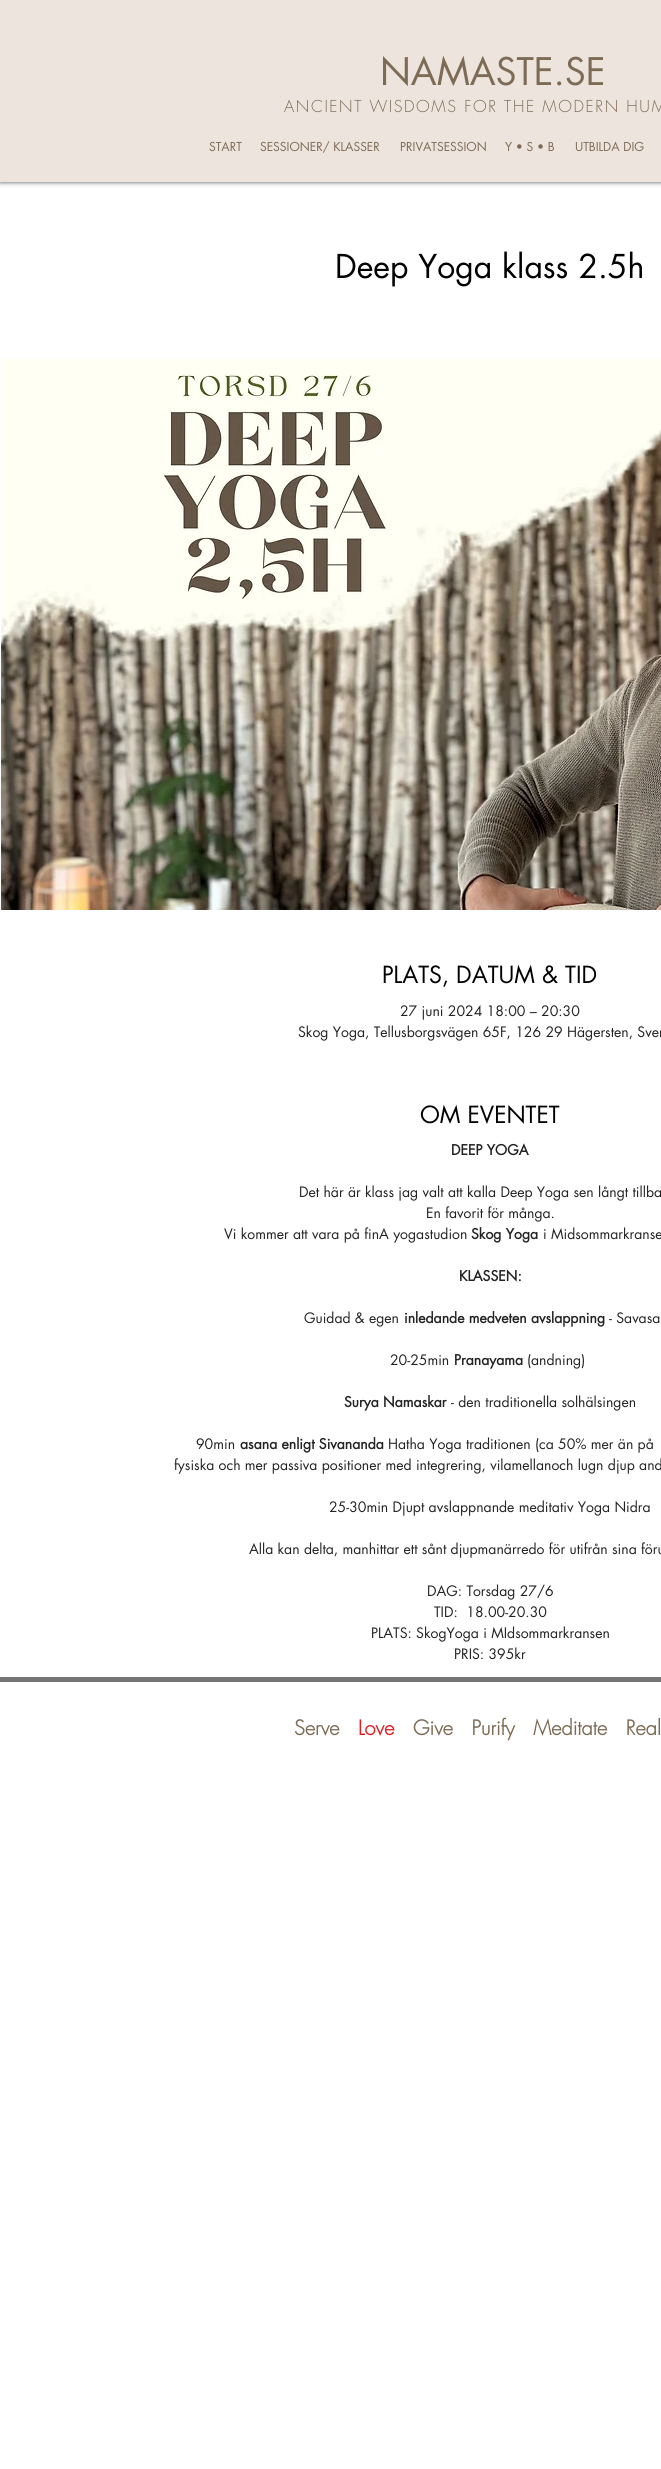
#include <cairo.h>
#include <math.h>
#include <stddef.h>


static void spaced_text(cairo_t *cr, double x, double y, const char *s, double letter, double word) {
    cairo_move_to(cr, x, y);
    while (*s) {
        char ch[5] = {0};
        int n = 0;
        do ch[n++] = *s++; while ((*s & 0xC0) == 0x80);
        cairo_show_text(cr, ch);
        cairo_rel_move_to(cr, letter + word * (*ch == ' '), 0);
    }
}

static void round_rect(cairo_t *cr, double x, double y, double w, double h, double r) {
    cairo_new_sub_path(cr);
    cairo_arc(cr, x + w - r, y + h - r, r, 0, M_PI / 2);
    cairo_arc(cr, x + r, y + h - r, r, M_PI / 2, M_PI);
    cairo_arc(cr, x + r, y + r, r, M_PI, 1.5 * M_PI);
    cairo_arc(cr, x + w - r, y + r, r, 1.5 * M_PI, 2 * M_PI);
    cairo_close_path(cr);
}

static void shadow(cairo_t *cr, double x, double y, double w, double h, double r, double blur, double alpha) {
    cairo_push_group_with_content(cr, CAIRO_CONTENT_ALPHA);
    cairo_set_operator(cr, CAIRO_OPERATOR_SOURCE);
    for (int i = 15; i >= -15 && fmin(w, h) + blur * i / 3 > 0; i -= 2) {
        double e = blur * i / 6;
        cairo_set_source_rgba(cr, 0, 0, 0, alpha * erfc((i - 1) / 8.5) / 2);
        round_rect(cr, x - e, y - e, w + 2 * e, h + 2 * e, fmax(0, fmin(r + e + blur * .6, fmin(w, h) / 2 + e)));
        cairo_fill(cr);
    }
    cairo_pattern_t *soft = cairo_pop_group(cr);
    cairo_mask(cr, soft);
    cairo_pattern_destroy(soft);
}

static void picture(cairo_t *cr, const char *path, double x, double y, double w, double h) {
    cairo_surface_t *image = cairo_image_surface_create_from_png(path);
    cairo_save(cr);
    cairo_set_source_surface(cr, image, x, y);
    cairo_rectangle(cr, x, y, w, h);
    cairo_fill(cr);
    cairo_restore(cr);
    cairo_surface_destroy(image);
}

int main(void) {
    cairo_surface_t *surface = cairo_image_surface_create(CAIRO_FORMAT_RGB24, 661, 2469);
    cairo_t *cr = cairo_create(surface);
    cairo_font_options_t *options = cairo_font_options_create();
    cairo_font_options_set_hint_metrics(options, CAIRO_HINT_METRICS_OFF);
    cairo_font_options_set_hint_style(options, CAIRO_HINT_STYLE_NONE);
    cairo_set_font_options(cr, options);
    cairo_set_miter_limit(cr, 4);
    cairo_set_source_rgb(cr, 1, 1, 1);
    cairo_paint(cr);
    cairo_set_source_rgb(cr, 0, 0, 0);
    shadow(cr, 0, 0, 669, 182, 0, 2.5, 0.7);
    cairo_set_source_rgb(cr, 0.929, 0.898, 0.867);
    cairo_rectangle(cr, 0, 0, 661, 182);
    cairo_fill(cr);
    cairo_select_font_face(cr, "futura", CAIRO_FONT_SLANT_NORMAL, CAIRO_FONT_WEIGHT_NORMAL);
    cairo_set_font_size(cr, 37);
    cairo_set_source_rgb(cr, 0.49, 0.42, 0.333);
    cairo_move_to(cr, 380, 85);
    cairo_show_text(cr, "NAMASTE.SE");
    cairo_select_font_face(cr, "futura Light", CAIRO_FONT_SLANT_NORMAL, CAIRO_FONT_WEIGHT_NORMAL);
    cairo_set_font_size(cr, 16);
    spaced_text(cr, 284, 112, "ANCIENT WISDOMS FOR THE MODERN HUM", 1.6, 0);
    cairo_select_font_face(cr, "futura", CAIRO_FONT_SLANT_NORMAL, CAIRO_FONT_WEIGHT_NORMAL);
    cairo_set_font_size(cr, 12);
    cairo_move_to(cr, 209, 151);
    cairo_show_text(cr, "START");
    cairo_move_to(cr, 260, 151);
    cairo_show_text(cr, "SESSIONER/ KLASSER");
    cairo_move_to(cr, 400, 151);
    cairo_show_text(cr, "PRIVATSESSION");
    cairo_move_to(cr, 505, 151);
    cairo_show_text(cr, "Y • S • B");
    cairo_move_to(cr, 575, 151);
    cairo_show_text(cr, "UTBILDA DIG");
    cairo_set_font_size(cr, 32);
    cairo_set_source_rgb(cr, 0, 0, 0);
    cairo_move_to(cr, 335, 278);
    cairo_show_text(cr, "Deep Yoga klass 2.5h");
    picture(cr, "img1.png", 1, 359, 660, 551);
    cairo_set_font_size(cr, 23);
    cairo_move_to(cr, 382, 983);
    cairo_show_text(cr, "PLATS, DATUM & TID");
    cairo_set_font_size(cr, 14);
    cairo_set_source_rgb(cr, 0.141, 0.137, 0.137);
    cairo_move_to(cr, 400, 1016);
    cairo_show_text(cr, "27 juni 2024 18:00 – 20:30");
    cairo_move_to(cr, 298, 1037);
    cairo_show_text(cr, "Skog Yoga, Tellusborgsvägen 65F, 126 29 Hägersten, Sver");
    cairo_set_font_size(cr, 23);
    cairo_set_source_rgb(cr, 0, 0, 0);
    cairo_move_to(cr, 420, 1123);
    cairo_show_text(cr, "OM EVENTET");
    cairo_select_font_face(cr, "futura", CAIRO_FONT_SLANT_NORMAL, CAIRO_FONT_WEIGHT_BOLD);
    cairo_set_font_size(cr, 14);
    cairo_set_source_rgb(cr, 0.141, 0.137, 0.137);
    cairo_move_to(cr, 451, 1155);
    cairo_show_text(cr, "DEEP YOGA");
    cairo_select_font_face(cr, "futura", CAIRO_FONT_SLANT_NORMAL, CAIRO_FONT_WEIGHT_NORMAL);
    cairo_move_to(cr, 299, 1197);
    cairo_show_text(cr, "Det här är klass jag valt att kalla Deep Yoga sen långt tillba");
    cairo_move_to(cr, 426, 1218);
    cairo_show_text(cr, "En favorit för många.");
    cairo_move_to(cr, 224, 1239);
    cairo_show_text(cr, "Vi kommer att vara på finA yogastudion");
    cairo_select_font_face(cr, "futura", CAIRO_FONT_SLANT_NORMAL, CAIRO_FONT_WEIGHT_BOLD);
    cairo_move_to(cr, 471, 1239);
    cairo_show_text(cr, "Skog Yoga");
    cairo_select_font_face(cr, "futura", CAIRO_FONT_SLANT_NORMAL, CAIRO_FONT_WEIGHT_NORMAL);
    cairo_move_to(cr, 543, 1239);
    cairo_show_text(cr, "i Midsommarkranse");
    cairo_select_font_face(cr, "futura", CAIRO_FONT_SLANT_NORMAL, CAIRO_FONT_WEIGHT_BOLD);
    cairo_move_to(cr, 459, 1281);
    cairo_show_text(cr, "KLASSEN:");
    cairo_select_font_face(cr, "futura", CAIRO_FONT_SLANT_NORMAL, CAIRO_FONT_WEIGHT_NORMAL);
    cairo_move_to(cr, 304, 1323);
    cairo_show_text(cr, "Guidad & egen");
    cairo_select_font_face(cr, "futura", CAIRO_FONT_SLANT_NORMAL, CAIRO_FONT_WEIGHT_BOLD);
    cairo_move_to(cr, 404, 1323);
    cairo_show_text(cr, "inledande medveten avslappning");
    cairo_select_font_face(cr, "futura", CAIRO_FONT_SLANT_NORMAL, CAIRO_FONT_WEIGHT_NORMAL);
    cairo_move_to(cr, 609, 1323);
    cairo_show_text(cr, "- Savasa");
    cairo_move_to(cr, 390, 1365);
    cairo_show_text(cr, "20-25min");
    cairo_select_font_face(cr, "futura", CAIRO_FONT_SLANT_NORMAL, CAIRO_FONT_WEIGHT_BOLD);
    cairo_move_to(cr, 454, 1365);
    cairo_show_text(cr, "Pranayama");
    cairo_select_font_face(cr, "futura", CAIRO_FONT_SLANT_NORMAL, CAIRO_FONT_WEIGHT_NORMAL);
    cairo_move_to(cr, 527, 1365);
    cairo_show_text(cr, "(andning)");
    cairo_select_font_face(cr, "futura", CAIRO_FONT_SLANT_NORMAL, CAIRO_FONT_WEIGHT_BOLD);
    cairo_move_to(cr, 344, 1407);
    cairo_show_text(cr, "Surya Namaskar");
    cairo_select_font_face(cr, "futura", CAIRO_FONT_SLANT_NORMAL, CAIRO_FONT_WEIGHT_NORMAL);
    cairo_move_to(cr, 451, 1407);
    cairo_show_text(cr, "- den traditionella solhälsingen");
    cairo_move_to(cr, 196, 1449);
    cairo_show_text(cr, "90min");
    cairo_select_font_face(cr, "futura", CAIRO_FONT_SLANT_NORMAL, CAIRO_FONT_WEIGHT_BOLD);
    cairo_move_to(cr, 240, 1449);
    cairo_show_text(cr, "asana enligt Sivananda");
    cairo_select_font_face(cr, "futura", CAIRO_FONT_SLANT_NORMAL, CAIRO_FONT_WEIGHT_NORMAL);
    cairo_move_to(cr, 388, 1449);
    cairo_show_text(cr, "Hatha Yoga traditionen (ca 50% mer än på");
    cairo_move_to(cr, 174, 1470);
    cairo_show_text(cr, "fysiska och mer passiva positioner med integrering, vilamellanoch lugn djup and");
    cairo_move_to(cr, 329, 1512);
    cairo_show_text(cr, "25-30min Djupt avslappnande meditativ Yoga Nidra");
    cairo_move_to(cr, 249, 1554);
    cairo_show_text(cr, "Alla kan delta, manhittar ett sånt djupmanärredo för utifrån sina föru");
    cairo_move_to(cr, 427, 1596);
    cairo_show_text(cr, "DAG: Torsdag 27/6");
    cairo_move_to(cr, 434, 1617);
    cairo_show_text(cr, "TID:  18.00-20.30");
    cairo_move_to(cr, 371, 1638);
    cairo_show_text(cr, "PLATS: SkogYoga i MIdsommarkransen");
    cairo_move_to(cr, 454, 1659);
    cairo_show_text(cr, "PRIS: 395kr");
    cairo_set_source_rgb(cr, 0.459, 0.459, 0.459);
    cairo_rectangle(cr, 0, 1677, 661, 5);
    cairo_fill(cr);
    cairo_select_font_face(cr, "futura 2", CAIRO_FONT_SLANT_NORMAL, CAIRO_FONT_WEIGHT_BOLD);
    cairo_set_font_size(cr, 20);
    cairo_set_source_rgb(cr, 0.49, 0.42, 0.333);
    cairo_move_to(cr, 294, 1735);
    cairo_show_text(cr, "Serve");
    cairo_set_source_rgb(cr, 0.886, 0.11, 0.129);
    cairo_move_to(cr, 358, 1735);
    cairo_show_text(cr, "Love");
    cairo_set_source_rgb(cr, 0.49, 0.42, 0.333);
    cairo_move_to(cr, 413, 1735);
    cairo_show_text(cr, "Give   Purify   Meditate   Real");
    cairo_surface_write_to_png(surface, "page.png");
    cairo_font_options_destroy(options);
    cairo_destroy(cr);
    cairo_surface_destroy(surface);
    return 0;
}
